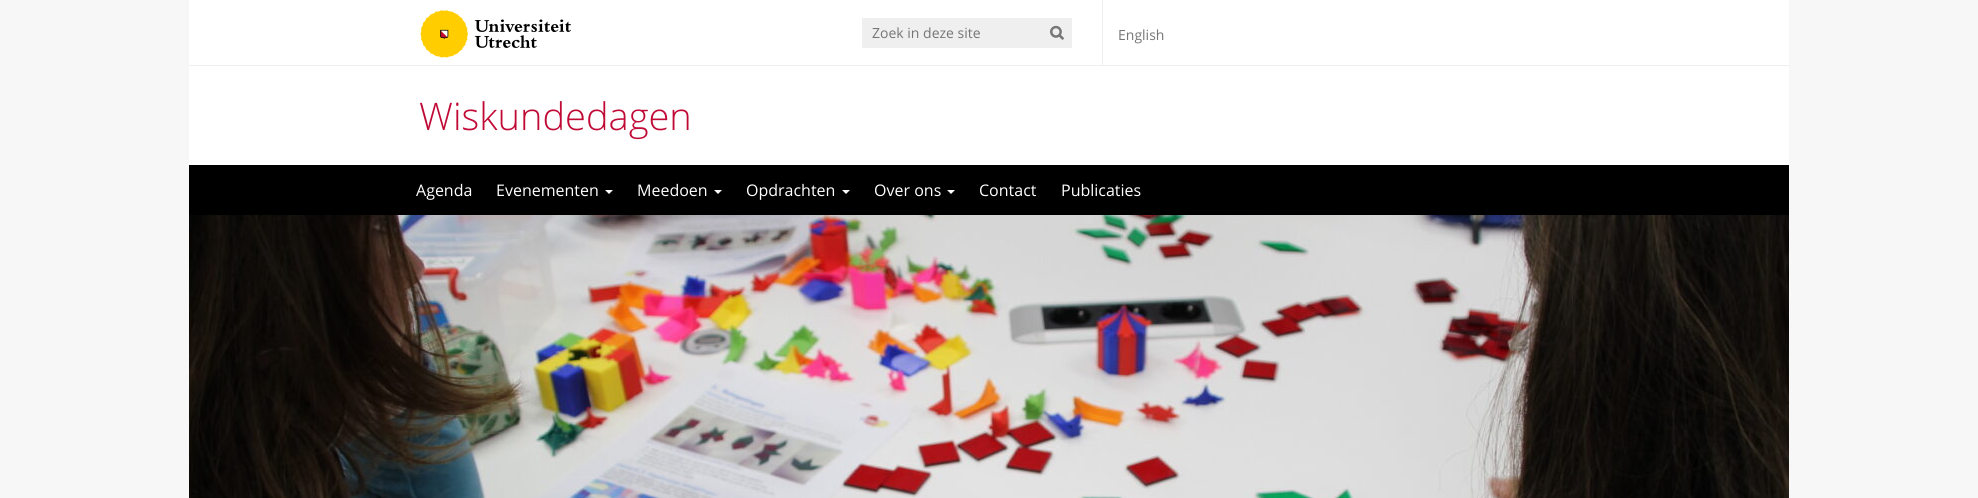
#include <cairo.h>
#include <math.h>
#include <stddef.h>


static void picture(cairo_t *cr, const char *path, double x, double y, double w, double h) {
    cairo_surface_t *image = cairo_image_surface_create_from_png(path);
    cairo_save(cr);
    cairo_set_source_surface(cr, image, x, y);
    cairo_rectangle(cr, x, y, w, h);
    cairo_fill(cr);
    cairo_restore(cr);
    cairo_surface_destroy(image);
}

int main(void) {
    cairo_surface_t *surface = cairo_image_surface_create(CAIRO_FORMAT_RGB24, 1978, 498);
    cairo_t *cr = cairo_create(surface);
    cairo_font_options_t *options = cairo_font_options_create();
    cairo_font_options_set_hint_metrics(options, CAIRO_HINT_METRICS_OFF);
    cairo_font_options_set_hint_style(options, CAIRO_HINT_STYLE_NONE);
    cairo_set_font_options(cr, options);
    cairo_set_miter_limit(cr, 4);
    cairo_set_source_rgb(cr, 0.965, 0.965, 0.965);
    cairo_paint(cr);
    cairo_set_source_rgb(cr, 1, 1, 1);
    cairo_rectangle(cr, 189, 0, 1600, 65);
    cairo_fill(cr);
    cairo_set_source_rgb(cr, 0.937, 0.937, 0.937);
    cairo_rectangle(cr, 189, 65, 1600, 1);
    cairo_fill(cr);
    picture(cr, "img1.png", 420, 10, 151, 48);
    cairo_rectangle(cr, 862, 18, 210, 30);
    cairo_fill(cr);
    cairo_select_font_face(cr, "Open Sans", CAIRO_FONT_SLANT_NORMAL, CAIRO_FONT_WEIGHT_NORMAL);
    cairo_set_font_size(cr, 14);
    cairo_set_source_rgb(cr, 0.459, 0.459, 0.459);
    cairo_move_to(cr, 872, 38);
    cairo_show_text(cr, "Zoek in deze site");
    picture(cr, "img2.png", 1050, 25, 14, 15);
    cairo_set_source_rgb(cr, 0.937, 0.937, 0.937);
    cairo_rectangle(cr, 1102, 0, 1, 65);
    cairo_fill(cr);
    cairo_set_source_rgb(cr, 0.459, 0.459, 0.459);
    cairo_move_to(cr, 1118, 40);
    cairo_show_text(cr, "English");
    cairo_set_source_rgb(cr, 1, 1, 1);
    cairo_rectangle(cr, 189, 66, 1600, 99);
    cairo_fill(cr);
    cairo_select_font_face(cr, "Open Sans Light", CAIRO_FONT_SLANT_NORMAL, CAIRO_FONT_WEIGHT_NORMAL);
    cairo_set_font_size(cr, 38);
    cairo_set_source_rgb(cr, 0.753, 0.039, 0.208);
    cairo_move_to(cr, 419, 130);
    cairo_show_text(cr, "Wiskundedagen");
    cairo_set_source_rgb(cr, 0, 0, 0);
    cairo_rectangle(cr, 189, 165, 1600, 50);
    cairo_fill(cr);
    cairo_select_font_face(cr, "Open Sans", CAIRO_FONT_SLANT_NORMAL, CAIRO_FONT_WEIGHT_NORMAL);
    cairo_set_font_size(cr, 16);
    cairo_set_source_rgb(cr, 1, 1, 1);
    cairo_move_to(cr, 416, 196);
    cairo_show_text(cr, "Agenda");
    cairo_move_to(cr, 496, 196);
    cairo_show_text(cr, "Evenementen");
    cairo_new_path(cr);
    cairo_move_to(cr, 605, 190);
    cairo_line_to(cr, 613, 190);
    cairo_line_to(cr, 609, 194);
    cairo_close_path(cr);
    cairo_fill(cr);
    cairo_move_to(cr, 637, 196);
    cairo_show_text(cr, "Meedoen");
    cairo_new_path(cr);
    cairo_move_to(cr, 714, 190);
    cairo_line_to(cr, 722, 190);
    cairo_line_to(cr, 718, 194);
    cairo_close_path(cr);
    cairo_fill(cr);
    cairo_move_to(cr, 746, 196);
    cairo_show_text(cr, "Opdrachten");
    cairo_new_path(cr);
    cairo_move_to(cr, 842, 190);
    cairo_line_to(cr, 850, 190);
    cairo_line_to(cr, 846, 194);
    cairo_close_path(cr);
    cairo_fill(cr);
    cairo_move_to(cr, 874, 196);
    cairo_show_text(cr, "Over ons");
    cairo_new_path(cr);
    cairo_move_to(cr, 947, 190);
    cairo_line_to(cr, 955, 190);
    cairo_line_to(cr, 951, 194);
    cairo_close_path(cr);
    cairo_fill(cr);
    cairo_move_to(cr, 979, 196);
    cairo_show_text(cr, "Contact");
    cairo_move_to(cr, 1061, 196);
    cairo_show_text(cr, "Publicaties");
    picture(cr, "img3.png", 189, 215, 1600, 283);
    cairo_surface_write_to_png(surface, "page.png");
    cairo_font_options_destroy(options);
    cairo_destroy(cr);
    cairo_surface_destroy(surface);
    return 0;
}
